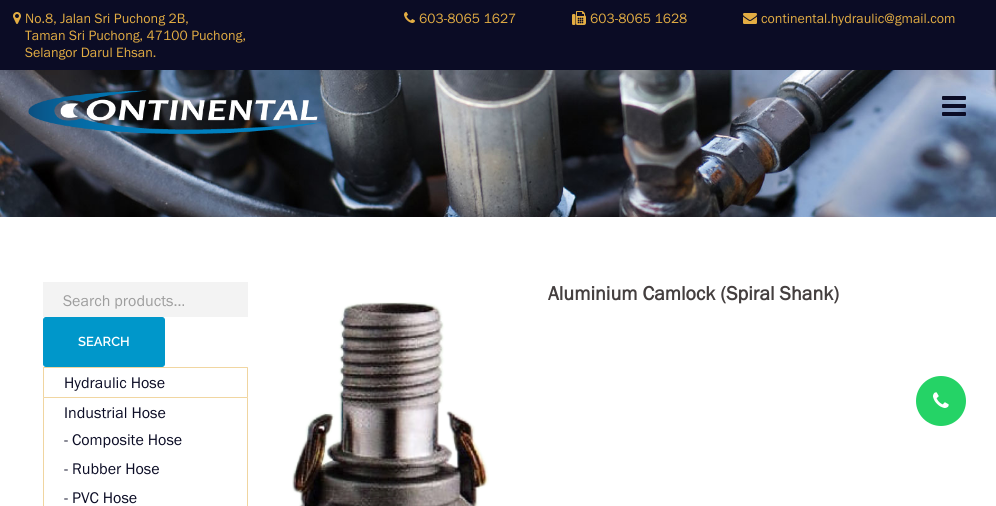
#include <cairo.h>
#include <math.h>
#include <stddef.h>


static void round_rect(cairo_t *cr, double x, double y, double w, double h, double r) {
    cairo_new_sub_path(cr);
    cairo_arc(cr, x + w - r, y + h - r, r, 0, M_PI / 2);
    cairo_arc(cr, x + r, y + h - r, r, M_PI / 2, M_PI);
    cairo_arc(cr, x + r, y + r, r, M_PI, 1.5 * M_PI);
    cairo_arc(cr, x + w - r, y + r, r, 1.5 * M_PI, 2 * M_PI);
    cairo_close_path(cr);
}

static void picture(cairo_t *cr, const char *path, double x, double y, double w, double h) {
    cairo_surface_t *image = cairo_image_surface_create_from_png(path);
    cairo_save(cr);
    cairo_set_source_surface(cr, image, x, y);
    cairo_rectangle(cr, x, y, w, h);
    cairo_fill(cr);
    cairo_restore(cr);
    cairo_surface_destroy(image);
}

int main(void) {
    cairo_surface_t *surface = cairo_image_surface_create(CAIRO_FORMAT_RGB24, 996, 506);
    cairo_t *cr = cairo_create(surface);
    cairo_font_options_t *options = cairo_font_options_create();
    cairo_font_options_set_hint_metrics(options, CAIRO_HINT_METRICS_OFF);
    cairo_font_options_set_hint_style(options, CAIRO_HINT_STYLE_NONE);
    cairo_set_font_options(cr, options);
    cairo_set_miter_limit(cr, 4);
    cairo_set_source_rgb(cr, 1, 1, 1);
    cairo_paint(cr);
    cairo_set_source_rgb(cr, 0.043, 0.047, 0.145);
    cairo_rectangle(cr, 0, 0, 996, 70);
    cairo_fill(cr);
    picture(cr, "img1.png", 13, 12, 8, 12);
    cairo_select_font_face(cr, "Franklin Gothic", CAIRO_FONT_SLANT_NORMAL, CAIRO_FONT_WEIGHT_NORMAL);
    cairo_set_font_size(cr, 14);
    cairo_set_source_rgb(cr, 0.89, 0.678, 0.263);
    cairo_move_to(cr, 25, 23);
    cairo_show_text(cr, "No.8, Jalan Sri Puchong 2B,");
    cairo_move_to(cr, 25, 40);
    cairo_show_text(cr, "Taman Sri Puchong, 47100 Puchong,");
    cairo_move_to(cr, 25, 57);
    cairo_show_text(cr, "Selangor Darul Ehsan.");
    picture(cr, "img2.png", 404, 12, 11, 11);
    cairo_move_to(cr, 419, 23);
    cairo_show_text(cr, "603-8065 1627");
    picture(cr, "img3.png", 572, 11, 14, 14);
    cairo_move_to(cr, 590, 23);
    cairo_show_text(cr, "603-8065 1628");
    picture(cr, "img4.png", 743, 13, 14, 11);
    cairo_move_to(cr, 761, 23);
    cairo_show_text(cr, "continental.hydraulic@gmail.com");
    picture(cr, "img7.png", 0, 70, 996, 147);
    picture(cr, "img5.png", 28, 90, 293, 44);
    picture(cr, "img6.png", 942, 96, 24, 20);
    cairo_set_source_rgb(cr, 0.953, 0.953, 0.953);
    cairo_rectangle(cr, 43, 282, 205, 35);
    cairo_fill(cr);
    cairo_set_font_size(cr, 16);
    cairo_set_source_rgb(cr, 0.62, 0.62, 0.62);
    cairo_move_to(cr, 63, 306);
    cairo_show_text(cr, "Search products…");
    cairo_set_source_rgb(cr, 0, 0.592, 0.792);
    round_rect(cr, 43.5, 317.5, 121, 49, 2.5);
    cairo_fill_preserve(cr);
    cairo_set_line_width(cr, 1);
    cairo_stroke(cr);
    cairo_select_font_face(cr, "Raleway SemiBold", CAIRO_FONT_SLANT_NORMAL, CAIRO_FONT_WEIGHT_NORMAL);
    cairo_set_font_size(cr, 13);
    cairo_set_source_rgb(cr, 1, 1, 1);
    cairo_move_to(cr, 78, 346);
    cairo_show_text(cr, "SEARCH");
    cairo_set_source_rgb(cr, 0.945, 0.839, 0.631);
    cairo_new_path(cr);
    cairo_move_to(cr, 43, 367);
    cairo_line_to(cr, 248, 367);
    cairo_line_to(cr, 247, 368);
    cairo_line_to(cr, 44, 368);
    cairo_close_path(cr);
    cairo_fill(cr);
    cairo_set_source_rgba(cr, 0.89, 0.678, 0.263, 0.5);
    cairo_new_path(cr);
    cairo_move_to(cr, 248, 367);
    cairo_line_to(cr, 248, 397);
    cairo_line_to(cr, 247, 397);
    cairo_line_to(cr, 247, 368);
    cairo_close_path(cr);
    cairo_fill(cr);
    cairo_new_path(cr);
    cairo_move_to(cr, 43, 397);
    cairo_line_to(cr, 43, 367);
    cairo_line_to(cr, 44, 368);
    cairo_line_to(cr, 44, 397);
    cairo_close_path(cr);
    cairo_fill(cr);
    cairo_select_font_face(cr, "Franklin Gothic", CAIRO_FONT_SLANT_NORMAL, CAIRO_FONT_WEIGHT_NORMAL);
    cairo_set_font_size(cr, 16);
    cairo_set_source_rgb(cr, 0.043, 0.047, 0.145);
    cairo_move_to(cr, 64, 388);
    cairo_show_text(cr, "Hydraulic Hose");
    cairo_set_source_rgb(cr, 0.945, 0.839, 0.631);
    cairo_new_path(cr);
    cairo_move_to(cr, 43, 397);
    cairo_line_to(cr, 248, 397);
    cairo_line_to(cr, 247, 398);
    cairo_line_to(cr, 44, 398);
    cairo_close_path(cr);
    cairo_fill(cr);
    cairo_set_source_rgba(cr, 0.89, 0.678, 0.263, 0.5);
    cairo_new_path(cr);
    cairo_move_to(cr, 248, 397);
    cairo_line_to(cr, 248, 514);
    cairo_line_to(cr, 247, 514);
    cairo_line_to(cr, 247, 398);
    cairo_close_path(cr);
    cairo_fill(cr);
    cairo_new_path(cr);
    cairo_move_to(cr, 43, 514);
    cairo_line_to(cr, 43, 397);
    cairo_line_to(cr, 44, 398);
    cairo_line_to(cr, 44, 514);
    cairo_close_path(cr);
    cairo_fill(cr);
    cairo_set_source_rgb(cr, 0.043, 0.047, 0.145);
    cairo_move_to(cr, 64, 418);
    cairo_show_text(cr, "Industrial Hose");
    cairo_move_to(cr, 64, 445);
    cairo_show_text(cr, "- Composite Hose");
    cairo_move_to(cr, 64, 474);
    cairo_show_text(cr, "- Rubber Hose");
    cairo_move_to(cr, 64, 503);
    cairo_show_text(cr, "- PVC Hose");
    cairo_select_font_face(cr, "Franklin Gothic", CAIRO_FONT_SLANT_NORMAL, CAIRO_FONT_WEIGHT_BOLD);
    cairo_set_font_size(cr, 20);
    cairo_set_source_rgb(cr, 0.267, 0.247, 0.247);
    cairo_move_to(cr, 548, 300);
    cairo_show_text(cr, "Aluminium Camlock (Spiral Shank)");
    picture(cr, "img8.png", 292, 302, 197, 204);
    cairo_set_source_rgb(cr, 0.145, 0.827, 0.4);
    cairo_arc(cr, 941, 401, 25, 0, 2 * M_PI);
    cairo_fill(cr);
    picture(cr, "img9.png", 933, 392, 16, 16);
    cairo_surface_write_to_png(surface, "page.png");
    cairo_font_options_destroy(options);
    cairo_destroy(cr);
    cairo_surface_destroy(surface);
    return 0;
}
